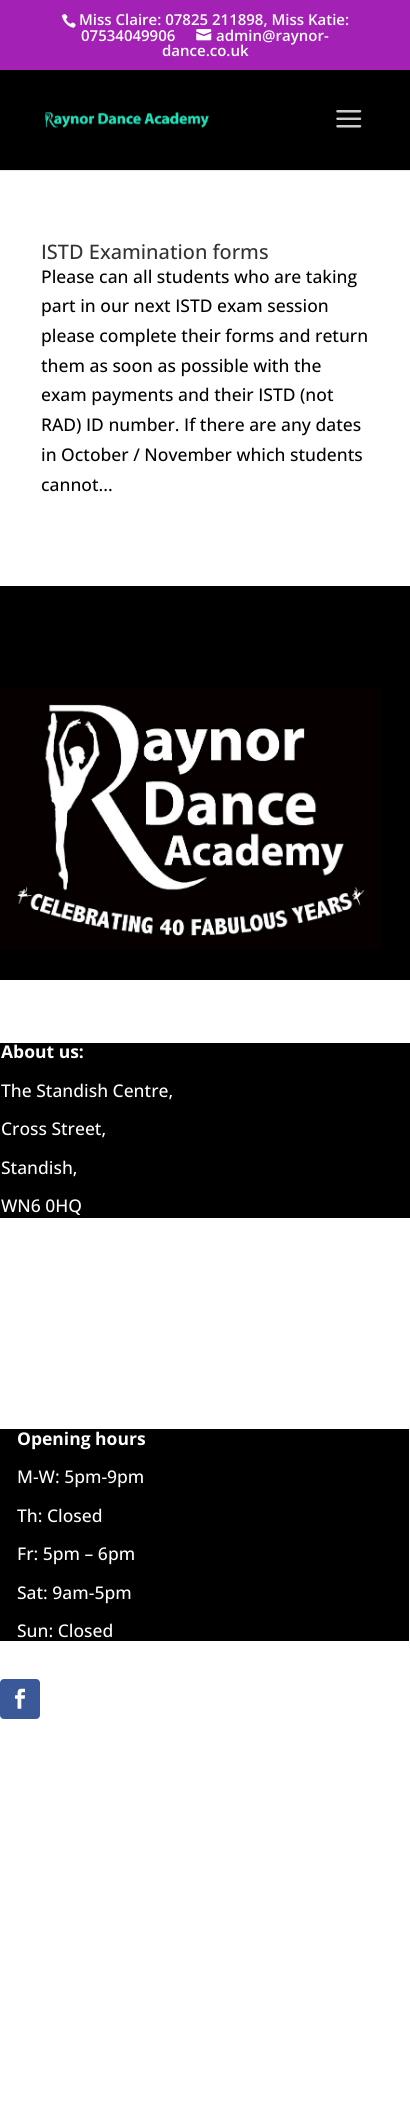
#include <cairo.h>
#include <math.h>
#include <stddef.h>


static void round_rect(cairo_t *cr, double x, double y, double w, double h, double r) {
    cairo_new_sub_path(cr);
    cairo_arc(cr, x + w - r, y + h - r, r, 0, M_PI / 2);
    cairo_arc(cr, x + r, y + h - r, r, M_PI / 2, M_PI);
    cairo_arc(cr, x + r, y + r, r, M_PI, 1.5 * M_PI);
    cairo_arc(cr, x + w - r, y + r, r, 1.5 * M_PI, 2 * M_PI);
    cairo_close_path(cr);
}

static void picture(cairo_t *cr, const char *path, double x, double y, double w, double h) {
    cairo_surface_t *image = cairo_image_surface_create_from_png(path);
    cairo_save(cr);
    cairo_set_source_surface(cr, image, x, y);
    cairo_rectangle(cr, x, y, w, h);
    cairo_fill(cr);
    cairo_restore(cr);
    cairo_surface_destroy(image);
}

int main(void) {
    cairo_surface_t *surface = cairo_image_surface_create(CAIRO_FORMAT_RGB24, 410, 2115);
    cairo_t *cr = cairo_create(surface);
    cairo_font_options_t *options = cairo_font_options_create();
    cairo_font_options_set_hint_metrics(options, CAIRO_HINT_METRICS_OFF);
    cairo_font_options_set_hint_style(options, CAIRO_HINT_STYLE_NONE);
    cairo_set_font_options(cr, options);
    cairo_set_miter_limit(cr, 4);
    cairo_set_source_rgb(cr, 1, 1, 1);
    cairo_paint(cr);
    cairo_set_source_rgb(cr, 0.639, 0.133, 0.71);
    cairo_rectangle(cr, 0, 0, 410, 70);
    cairo_fill(cr);
    picture(cr, "img1.png", 61, 14, 15, 14);
    cairo_select_font_face(cr, "Open Sans SemiBold", CAIRO_FONT_SLANT_NORMAL, CAIRO_FONT_WEIGHT_NORMAL);
    cairo_set_font_size(cr, 15);
    cairo_set_source_rgb(cr, 1, 1, 1);
    cairo_move_to(cr, 79, 25);
    cairo_show_text(cr, "Miss Claire: 07825 211898, Miss Katie:");
    cairo_move_to(cr, 81, 41);
    cairo_show_text(cr, "07534049906");
    picture(cr, "img2.png", 196, 29, 16, 12);
    cairo_move_to(cr, 216, 41);
    cairo_show_text(cr, "admin@raynor-");
    cairo_move_to(cr, 162, 56);
    cairo_show_text(cr, "dance.co.uk");
    cairo_set_source_rgb(cr, 0.902, 0.902, 0.902);
    cairo_rectangle(cr, 0, 170, 410, 1);
    cairo_fill(cr);
    cairo_set_source_rgb(cr, 0, 0, 0);
    cairo_rectangle(cr, 0, 70, 410, 100);
    cairo_fill(cr);
    picture(cr, "img3.png", 45, 112, 164, 17);
    picture(cr, "img4.png", 336, 110, 26, 18);
    cairo_select_font_face(cr, "Open Sans Medium", CAIRO_FONT_SLANT_NORMAL, CAIRO_FONT_WEIGHT_NORMAL);
    cairo_set_font_size(cr, 20);
    cairo_set_source_rgb(cr, 0.2, 0.2, 0.2);
    cairo_move_to(cr, 41, 259);
    cairo_show_text(cr, "ISTD Examination forms");
    cairo_set_font_size(cr, 17.5);
    cairo_set_source_rgb(cr, 0.008, 0.008, 0.008);
    cairo_move_to(cr, 41, 283);
    cairo_show_text(cr, "Please can all students who are taking");
    cairo_move_to(cr, 41, 312);
    cairo_show_text(cr, "part in our next ISTD exam session");
    cairo_move_to(cr, 41, 342);
    cairo_show_text(cr, "please complete their forms and return");
    cairo_move_to(cr, 41, 372);
    cairo_show_text(cr, "them as soon as possible with the");
    cairo_move_to(cr, 41, 401);
    cairo_show_text(cr, "exam payments and their ISTD (not");
    cairo_move_to(cr, 41, 431);
    cairo_show_text(cr, "RAD) ID number. If there are any dates");
    cairo_move_to(cr, 41, 461);
    cairo_show_text(cr, "in October / November which students");
    cairo_move_to(cr, 41, 491);
    cairo_show_text(cr, "cannot...");
    cairo_set_source_rgb(cr, 0, 0, 0);
    cairo_rectangle(cr, 0, 586, 410, 394);
    cairo_fill(cr);
    picture(cr, "img5.png", 0, 687, 381, 263);
    cairo_rectangle(cr, 0, 1043, 410, 175);
    cairo_fill(cr);
    cairo_select_font_face(cr, "Open Sans", CAIRO_FONT_SLANT_NORMAL, CAIRO_FONT_WEIGHT_BOLD);
    cairo_set_source_rgb(cr, 1, 1, 1);
    cairo_move_to(cr, 1, 1058);
    cairo_show_text(cr, "About us:");
    cairo_select_font_face(cr, "Open Sans Medium", CAIRO_FONT_SLANT_NORMAL, CAIRO_FONT_WEIGHT_NORMAL);
    cairo_move_to(cr, 1, 1097);
    cairo_show_text(cr, "The Standish Centre,");
    cairo_move_to(cr, 1, 1135);
    cairo_show_text(cr, "Cross Street,");
    cairo_move_to(cr, 1, 1174);
    cairo_show_text(cr, "Standish,");
    cairo_move_to(cr, 1, 1212);
    cairo_show_text(cr, "WN6 0HQ");
    cairo_set_source_rgb(cr, 0, 0, 0);
    cairo_rectangle(cr, 0, 1429, 409, 212);
    cairo_fill(cr);
    cairo_select_font_face(cr, "Open Sans", CAIRO_FONT_SLANT_NORMAL, CAIRO_FONT_WEIGHT_BOLD);
    cairo_set_source_rgb(cr, 1, 1, 1);
    cairo_move_to(cr, 17, 1445);
    cairo_show_text(cr, "Opening hours");
    cairo_select_font_face(cr, "Open Sans Medium", CAIRO_FONT_SLANT_NORMAL, CAIRO_FONT_WEIGHT_NORMAL);
    cairo_move_to(cr, 17, 1483);
    cairo_show_text(cr, "M-W: 5pm-9pm");
    cairo_move_to(cr, 17, 1522);
    cairo_show_text(cr, "Th: Closed");
    cairo_move_to(cr, 17, 1560);
    cairo_show_text(cr, "Fr: 5pm – 6pm");
    cairo_move_to(cr, 17, 1599);
    cairo_show_text(cr, "Sat: 9am-5pm");
    cairo_move_to(cr, 17, 1637);
    cairo_show_text(cr, "Sun: Closed");
    cairo_set_source_rgb(cr, 0.231, 0.349, 0.596);
    round_rect(cr, 0, 1679, 40, 40, 4);
    cairo_fill(cr);
    picture(cr, "img6.png", 15, 1688, 10, 21);
    cairo_surface_write_to_png(surface, "page.png");
    cairo_font_options_destroy(options);
    cairo_destroy(cr);
    cairo_surface_destroy(surface);
    return 0;
}
